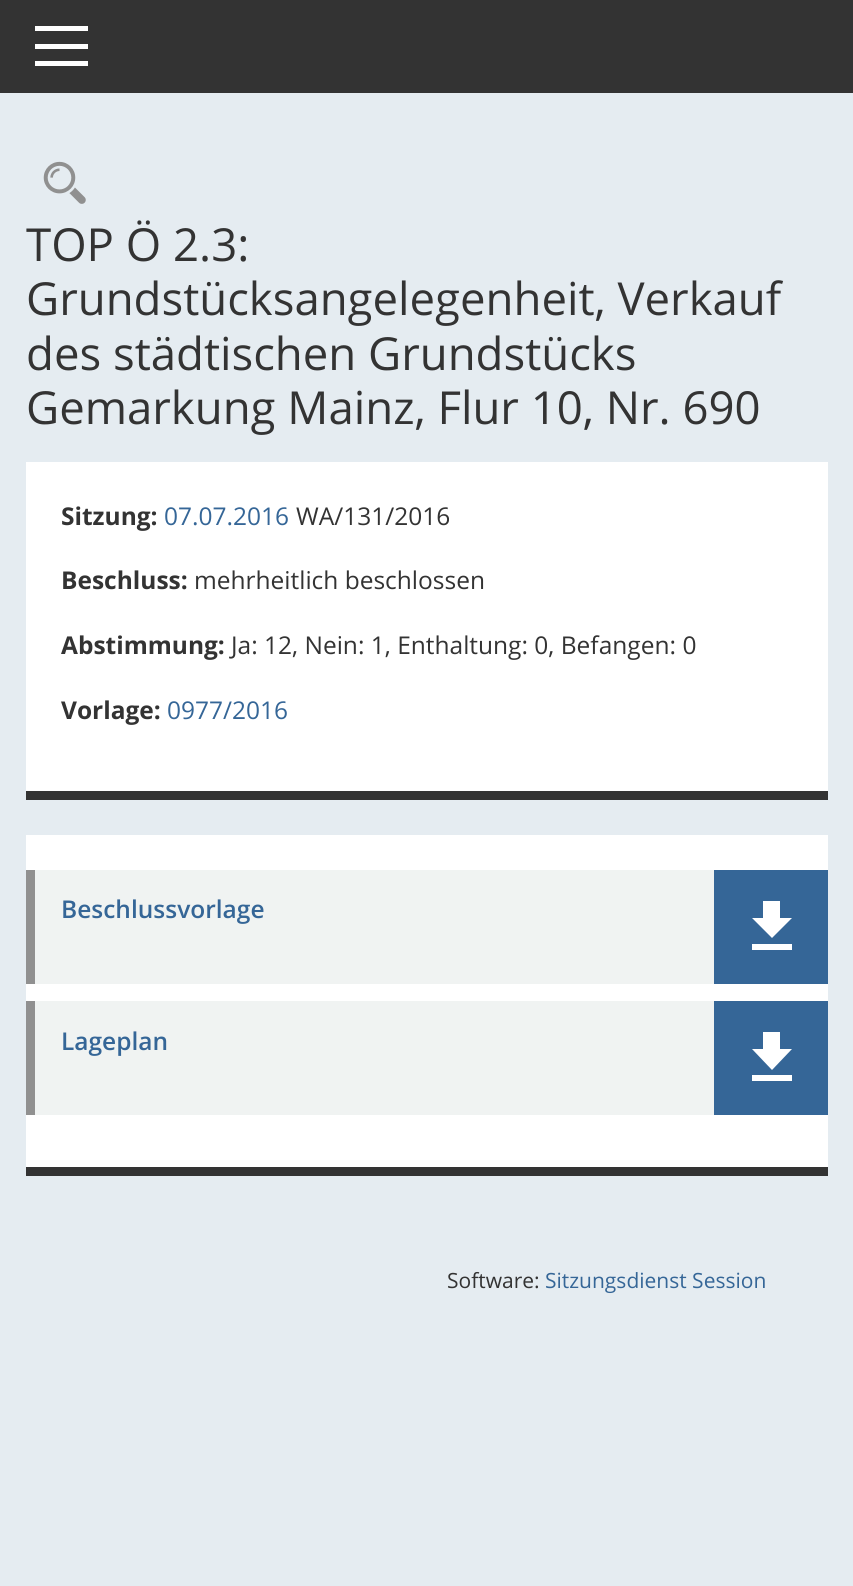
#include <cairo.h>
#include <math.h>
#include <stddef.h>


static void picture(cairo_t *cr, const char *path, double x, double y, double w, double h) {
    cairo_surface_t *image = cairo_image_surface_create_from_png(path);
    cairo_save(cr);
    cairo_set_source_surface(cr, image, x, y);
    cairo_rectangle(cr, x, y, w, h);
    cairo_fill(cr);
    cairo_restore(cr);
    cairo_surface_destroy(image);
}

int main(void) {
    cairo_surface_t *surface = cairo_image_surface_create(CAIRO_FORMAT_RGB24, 853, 1586);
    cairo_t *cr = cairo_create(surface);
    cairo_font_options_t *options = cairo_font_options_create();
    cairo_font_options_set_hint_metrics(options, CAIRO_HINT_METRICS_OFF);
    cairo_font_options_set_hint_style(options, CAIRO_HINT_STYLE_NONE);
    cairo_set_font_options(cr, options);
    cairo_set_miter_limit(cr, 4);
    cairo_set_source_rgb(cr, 0.898, 0.922, 0.945);
    cairo_paint(cr);
    cairo_set_source_rgb(cr, 0.2, 0.2, 0.2);
    cairo_rectangle(cr, 0, 0, 853, 93);
    cairo_fill(cr);
    cairo_set_source_rgb(cr, 1, 1, 1);
    cairo_rectangle(cr, 35, 26, 53, 5);
    cairo_fill(cr);
    cairo_rectangle(cr, 35, 44, 53, 5);
    cairo_fill(cr);
    cairo_rectangle(cr, 35, 61, 53, 5);
    cairo_fill(cr);
    picture(cr, "img1.png", 43, 161, 43, 43);
    cairo_select_font_face(cr, "Open Sans", CAIRO_FONT_SLANT_NORMAL, CAIRO_FONT_WEIGHT_NORMAL);
    cairo_set_font_size(cr, 45.5);
    cairo_set_source_rgb(cr, 0.2, 0.2, 0.2);
    cairo_move_to(cr, 26, 261);
    cairo_show_text(cr, "TOP Ö 2.3:");
    cairo_move_to(cr, 26, 315);
    cairo_show_text(cr, "Grundstücksangelegenheit, Verkauf");
    cairo_move_to(cr, 26, 370);
    cairo_show_text(cr, "des städtischen Grundstücks");
    cairo_move_to(cr, 26, 424);
    cairo_show_text(cr, "Gemarkung Mainz, Flur 10, Nr. 690");
    cairo_set_source_rgb(cr, 1, 1, 1);
    cairo_rectangle(cr, 26, 462, 802, 329);
    cairo_fill(cr);
    cairo_set_source_rgb(cr, 0.2, 0.2, 0.2);
    cairo_rectangle(cr, 26, 791, 802, 9);
    cairo_fill(cr);
    cairo_select_font_face(cr, "Open Sans", CAIRO_FONT_SLANT_NORMAL, CAIRO_FONT_WEIGHT_BOLD);
    cairo_set_font_size(cr, 24.5);
    cairo_move_to(cr, 61, 525);
    cairo_show_text(cr, "Sitzung:");
    cairo_select_font_face(cr, "Open Sans", CAIRO_FONT_SLANT_NORMAL, CAIRO_FONT_WEIGHT_NORMAL);
    cairo_set_source_rgb(cr, 0.208, 0.4, 0.592);
    cairo_move_to(cr, 164, 525);
    cairo_show_text(cr, "07.07.2016");
    cairo_set_source_rgb(cr, 0.2, 0.2, 0.2);
    cairo_move_to(cr, 296, 525);
    cairo_show_text(cr, "WA/131/2016");
    cairo_select_font_face(cr, "Open Sans", CAIRO_FONT_SLANT_NORMAL, CAIRO_FONT_WEIGHT_BOLD);
    cairo_move_to(cr, 61, 589);
    cairo_show_text(cr, "Beschluss:");
    cairo_select_font_face(cr, "Open Sans", CAIRO_FONT_SLANT_NORMAL, CAIRO_FONT_WEIGHT_NORMAL);
    cairo_move_to(cr, 194, 589);
    cairo_show_text(cr, "mehrheitlich beschlossen");
    cairo_select_font_face(cr, "Open Sans", CAIRO_FONT_SLANT_NORMAL, CAIRO_FONT_WEIGHT_BOLD);
    cairo_move_to(cr, 61, 654);
    cairo_show_text(cr, "Abstimmung:");
    cairo_select_font_face(cr, "Open Sans", CAIRO_FONT_SLANT_NORMAL, CAIRO_FONT_WEIGHT_NORMAL);
    cairo_move_to(cr, 231, 654);
    cairo_show_text(cr, "Ja: 12, Nein: 1, Enthaltung: 0, Befangen: 0");
    cairo_select_font_face(cr, "Open Sans", CAIRO_FONT_SLANT_NORMAL, CAIRO_FONT_WEIGHT_BOLD);
    cairo_move_to(cr, 61, 719);
    cairo_show_text(cr, "Vorlage:");
    cairo_select_font_face(cr, "Open Sans", CAIRO_FONT_SLANT_NORMAL, CAIRO_FONT_WEIGHT_NORMAL);
    cairo_set_source_rgb(cr, 0.208, 0.4, 0.592);
    cairo_move_to(cr, 167, 719);
    cairo_show_text(cr, "0977/2016");
    cairo_set_source_rgb(cr, 1, 1, 1);
    cairo_rectangle(cr, 26, 835, 802, 332);
    cairo_fill(cr);
    cairo_set_source_rgb(cr, 0.2, 0.2, 0.2);
    cairo_rectangle(cr, 26, 1167, 802, 9);
    cairo_fill(cr);
    cairo_set_source_rgb(cr, 0.941, 0.953, 0.949);
    cairo_rectangle(cr, 35, 870, 679, 114);
    cairo_fill(cr);
    cairo_set_source_rgb(cr, 0.565, 0.565, 0.565);
    cairo_rectangle(cr, 26, 870, 9, 114);
    cairo_fill(cr);
    cairo_select_font_face(cr, "Open Sans SemiBold", CAIRO_FONT_SLANT_NORMAL, CAIRO_FONT_WEIGHT_NORMAL);
    cairo_set_source_rgb(cr, 0.208, 0.4, 0.592);
    cairo_move_to(cr, 61, 918);
    cairo_show_text(cr, "Beschlussvorlage");
    cairo_rectangle(cr, 714, 870, 114, 114);
    cairo_fill(cr);
    cairo_set_source_rgb(cr, 1, 1, 1);
    cairo_new_path(cr);
    cairo_move_to(cr, 792, 918);
    cairo_line_to(cr, 780, 918);
    cairo_line_to(cr, 780, 901);
    cairo_line_to(cr, 763, 901);
    cairo_line_to(cr, 763, 918);
    cairo_line_to(cr, 752, 918);
    cairo_line_to(cr, 772, 938);
    cairo_close_path(cr);
    cairo_move_to(cr, 752, 944);
    cairo_line_to(cr, 752, 950);
    cairo_line_to(cr, 792, 950);
    cairo_line_to(cr, 792, 944);
    cairo_close_path(cr);
    cairo_fill(cr);
    cairo_set_source_rgb(cr, 0.941, 0.953, 0.949);
    cairo_rectangle(cr, 35, 1001, 679, 114);
    cairo_fill(cr);
    cairo_set_source_rgb(cr, 0.565, 0.565, 0.565);
    cairo_rectangle(cr, 26, 1001, 9, 114);
    cairo_fill(cr);
    cairo_set_source_rgb(cr, 0.208, 0.4, 0.592);
    cairo_move_to(cr, 61, 1050);
    cairo_show_text(cr, "Lageplan");
    cairo_rectangle(cr, 714, 1001, 114, 114);
    cairo_fill(cr);
    cairo_set_source_rgb(cr, 1, 1, 1);
    cairo_new_path(cr);
    cairo_move_to(cr, 792, 1049);
    cairo_line_to(cr, 780, 1049);
    cairo_line_to(cr, 780, 1032);
    cairo_line_to(cr, 763, 1032);
    cairo_line_to(cr, 763, 1049);
    cairo_line_to(cr, 752, 1049);
    cairo_line_to(cr, 772, 1070);
    cairo_close_path(cr);
    cairo_move_to(cr, 752, 1075);
    cairo_line_to(cr, 752, 1081);
    cairo_line_to(cr, 792, 1081);
    cairo_line_to(cr, 792, 1075);
    cairo_close_path(cr);
    cairo_fill(cr);
    cairo_select_font_face(cr, "Open Sans", CAIRO_FONT_SLANT_NORMAL, CAIRO_FONT_WEIGHT_NORMAL);
    cairo_set_font_size(cr, 21);
    cairo_set_source_rgb(cr, 0.2, 0.2, 0.2);
    cairo_move_to(cr, 447, 1288);
    cairo_show_text(cr, "Software:");
    cairo_set_source_rgb(cr, 0.208, 0.4, 0.592);
    cairo_move_to(cr, 545, 1288);
    cairo_show_text(cr, "Sitzungsdienst Session");
    cairo_surface_write_to_png(surface, "page.png");
    cairo_font_options_destroy(options);
    cairo_destroy(cr);
    cairo_surface_destroy(surface);
    return 0;
}
